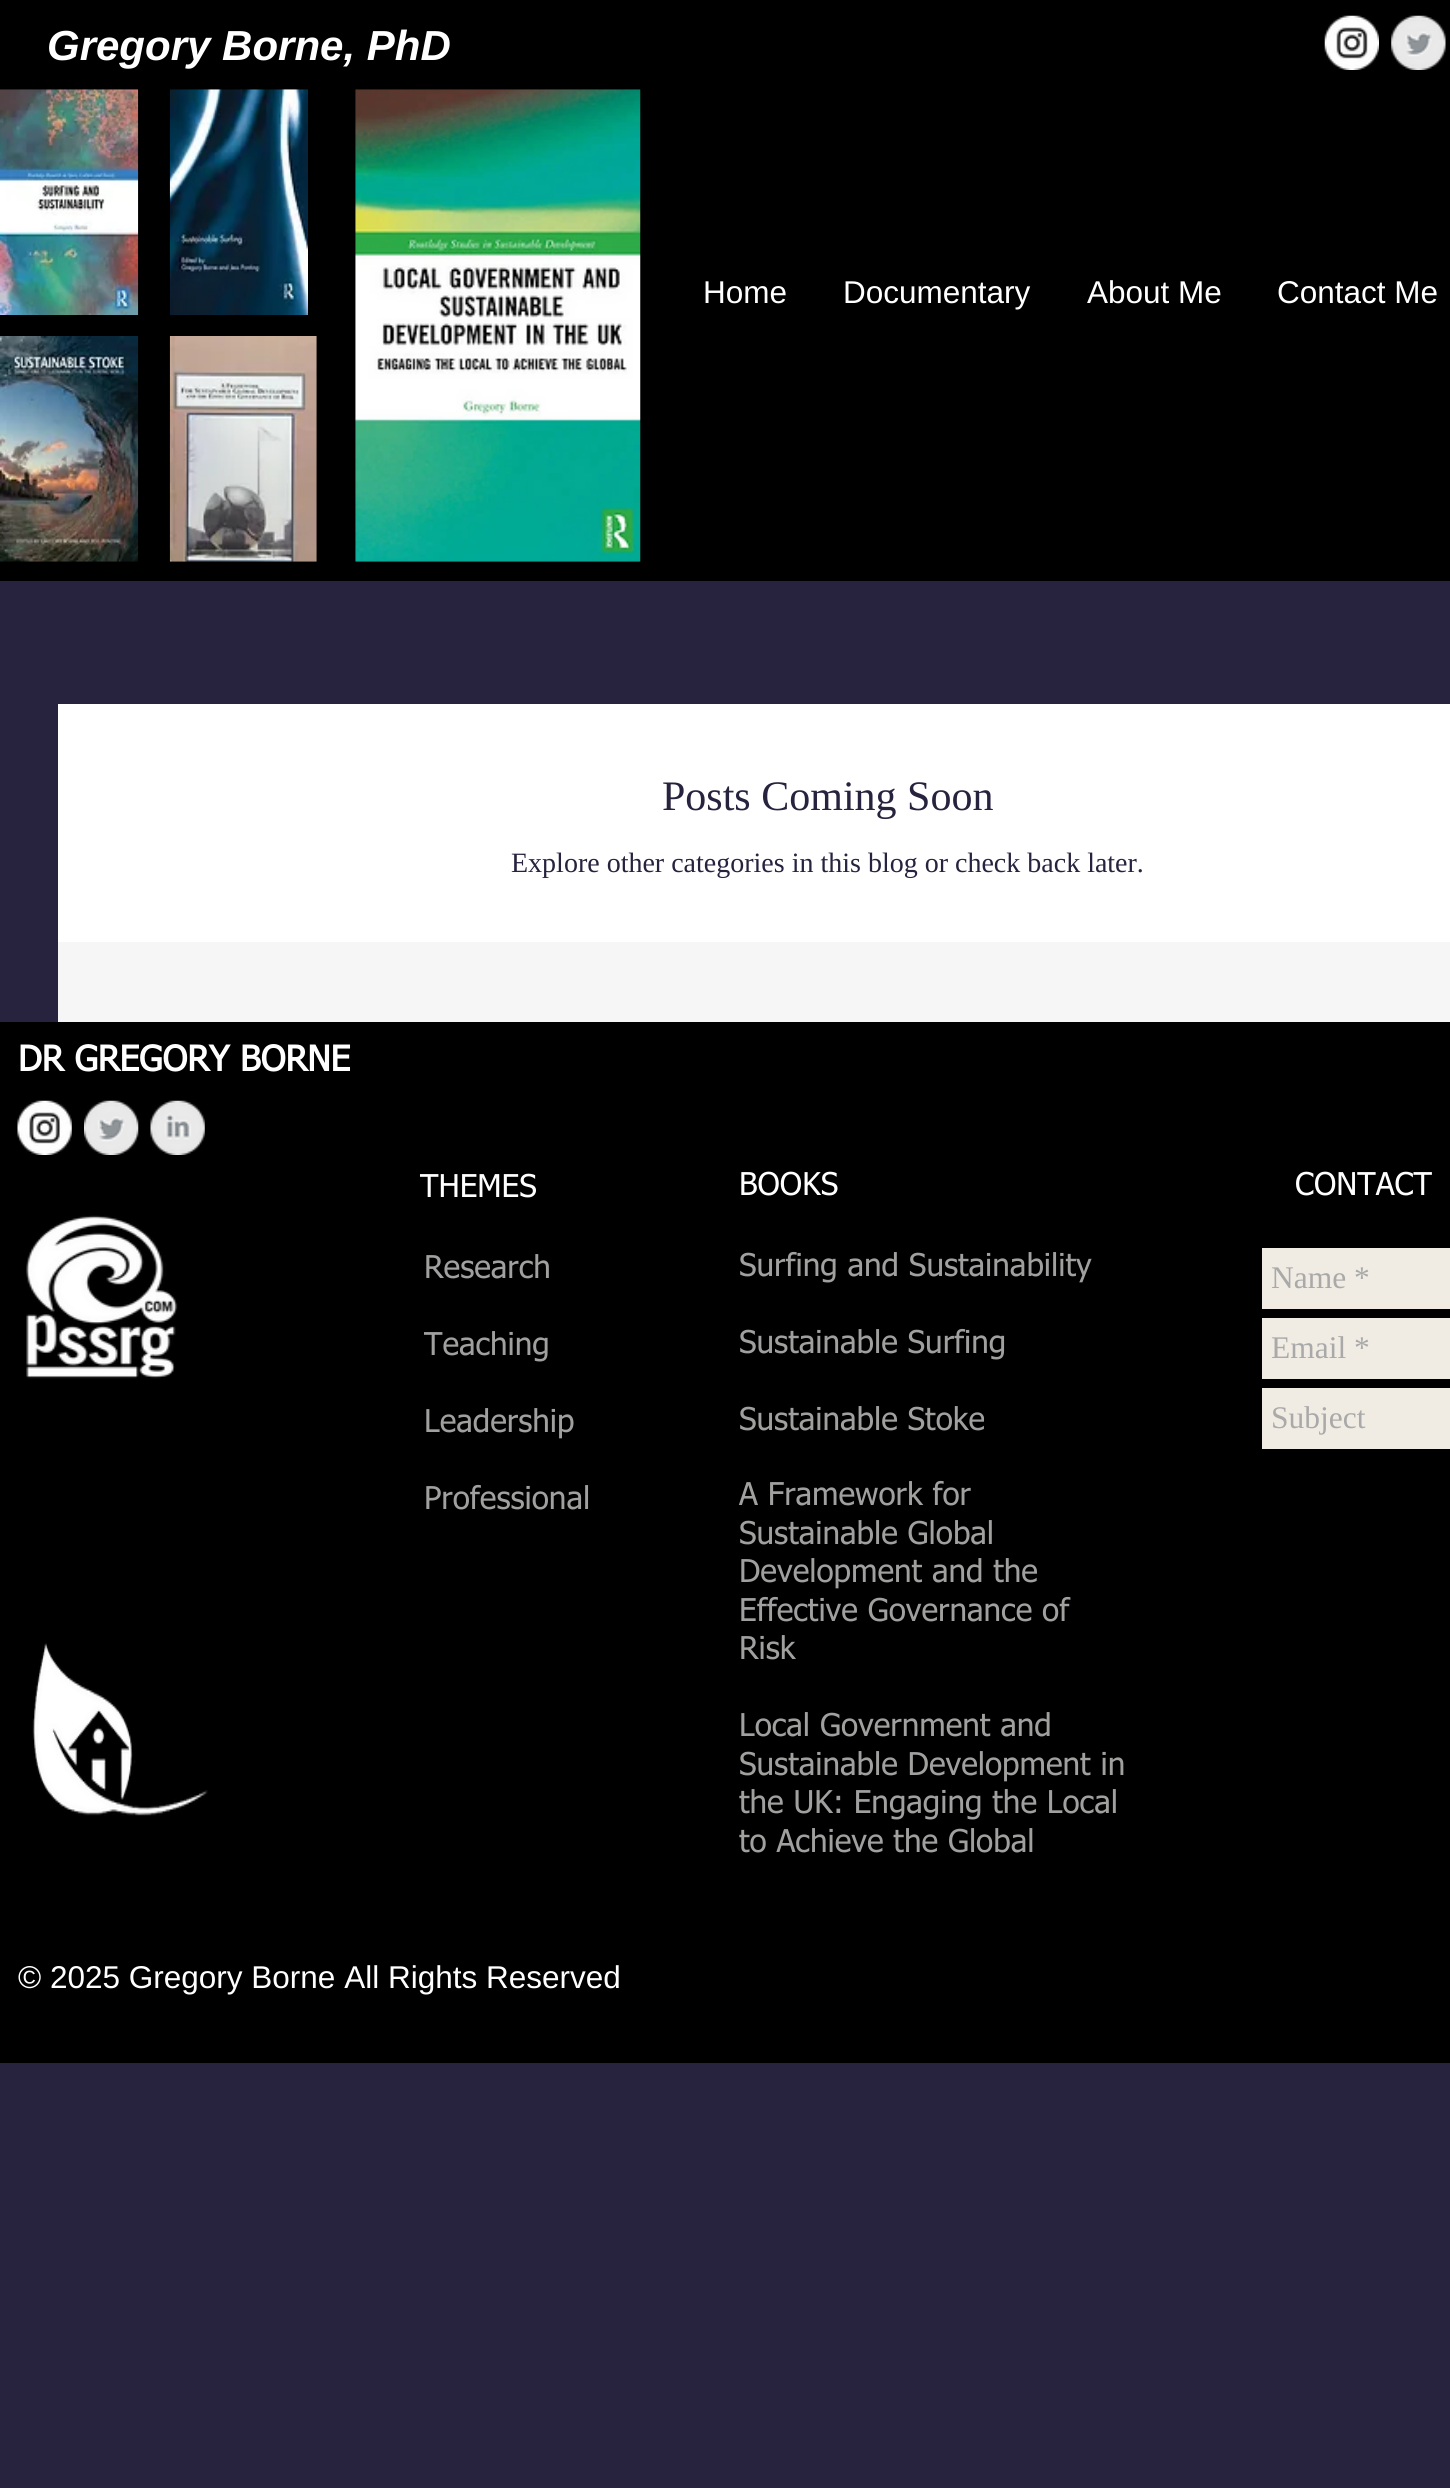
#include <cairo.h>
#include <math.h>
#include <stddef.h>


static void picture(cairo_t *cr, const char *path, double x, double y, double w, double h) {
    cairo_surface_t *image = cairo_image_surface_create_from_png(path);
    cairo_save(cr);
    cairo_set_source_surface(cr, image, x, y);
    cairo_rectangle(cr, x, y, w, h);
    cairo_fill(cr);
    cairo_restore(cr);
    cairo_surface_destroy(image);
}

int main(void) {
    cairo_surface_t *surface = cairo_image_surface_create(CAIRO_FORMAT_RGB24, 1450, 2488);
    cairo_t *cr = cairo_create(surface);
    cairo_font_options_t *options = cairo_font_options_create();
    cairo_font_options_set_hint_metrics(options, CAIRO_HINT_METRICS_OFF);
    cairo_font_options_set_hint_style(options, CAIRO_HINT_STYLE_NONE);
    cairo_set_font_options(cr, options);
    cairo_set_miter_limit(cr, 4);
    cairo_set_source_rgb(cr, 0.153, 0.133, 0.243);
    cairo_paint(cr);
    cairo_set_source_rgb(cr, 0, 0, 0);
    cairo_rectangle(cr, 0, 0, 1450, 581);
    cairo_fill(cr);
    cairo_select_font_face(cr, "Liberation Sans", CAIRO_FONT_SLANT_ITALIC, CAIRO_FONT_WEIGHT_BOLD);
    cairo_set_font_size(cr, 42);
    cairo_set_source_rgb(cr, 1, 1, 1);
    cairo_move_to(cr, 47, 60);
    cairo_show_text(cr, "Gregory Borne, PhD");
    picture(cr, "img1.png", 1324, 15, 55, 55);
    picture(cr, "img2.png", 1391, 15, 55, 55);
    picture(cr, "img3.png", 0, 89, 139, 226);
    picture(cr, "img4.png", 169, 89, 139, 226);
    picture(cr, "img5.png", 355, 89, 286, 473);
    cairo_select_font_face(cr, "Liberation Sans", CAIRO_FONT_SLANT_NORMAL, CAIRO_FONT_WEIGHT_NORMAL);
    cairo_set_font_size(cr, 31.5);
    cairo_move_to(cr, 703, 303);
    cairo_show_text(cr, "Home");
    cairo_move_to(cr, 843, 303);
    cairo_show_text(cr, "Documentary");
    cairo_move_to(cr, 1087, 303);
    cairo_show_text(cr, "About Me");
    cairo_move_to(cr, 1277, 303);
    cairo_show_text(cr, "Contact Me");
    picture(cr, "img6.png", 0, 336, 139, 226);
    picture(cr, "img7.png", 169, 336, 148, 226);
    cairo_set_source_rgb(cr, 0.961, 0.961, 0.961);
    cairo_rectangle(cr, 58, 942, 1392, 80);
    cairo_fill(cr);
    cairo_set_source_rgb(cr, 1, 1, 1);
    cairo_rectangle(cr, 58, 704, 1392, 238);
    cairo_fill(cr);
    cairo_select_font_face(cr, "Liberation Serif", CAIRO_FONT_SLANT_NORMAL, CAIRO_FONT_WEIGHT_NORMAL);
    cairo_set_font_size(cr, 42);
    cairo_set_source_rgb(cr, 0.153, 0.133, 0.243);
    cairo_move_to(cr, 662, 810);
    cairo_show_text(cr, "Posts Coming Soon");
    cairo_set_font_size(cr, 28);
    cairo_move_to(cr, 511, 872);
    cairo_show_text(cr, "Explore other categories in this blog or check back later.");
    cairo_set_source_rgb(cr, 0, 0, 0);
    cairo_rectangle(cr, 0, 1022, 1450, 1041);
    cairo_fill(cr);
    cairo_select_font_face(cr, "tahoma", CAIRO_FONT_SLANT_NORMAL, CAIRO_FONT_WEIGHT_BOLD);
    cairo_set_font_size(cr, 35);
    cairo_set_source_rgb(cr, 1, 1, 1);
    cairo_move_to(cr, 18, 1071);
    cairo_show_text(cr, "DR GREGORY BORNE");
    picture(cr, "img8.png", 17, 1100, 55, 55);
    picture(cr, "img9.png", 84, 1100, 55, 55);
    picture(cr, "img10.png", 150, 1100, 55, 55);
    cairo_select_font_face(cr, "tahoma", CAIRO_FONT_SLANT_NORMAL, CAIRO_FONT_WEIGHT_NORMAL);
    cairo_set_font_size(cr, 31.5);
    cairo_move_to(cr, 420, 1197);
    cairo_show_text(cr, "THEMES");
    cairo_move_to(cr, 739, 1195);
    cairo_show_text(cr, "BOOKS");
    cairo_move_to(cr, 1295, 1195);
    cairo_show_text(cr, "CONTACT");
    picture(cr, "img11.png", 26, 1215, 152, 164);
    cairo_set_source_rgb(cr, 0.627, 0.627, 0.624);
    cairo_move_to(cr, 424, 1278);
    cairo_show_text(cr, "Research");
    cairo_move_to(cr, 424, 1355);
    cairo_show_text(cr, "Teaching");
    cairo_move_to(cr, 424, 1432);
    cairo_show_text(cr, "Leadership");
    cairo_move_to(cr, 424, 1509);
    cairo_show_text(cr, "Professional");
    cairo_move_to(cr, 739, 1276);
    cairo_show_text(cr, "Surfing and Sustainability");
    cairo_move_to(cr, 739, 1353);
    cairo_show_text(cr, "Sustainable Surfing");
    cairo_move_to(cr, 739, 1430);
    cairo_show_text(cr, "Sustainable Stoke");
    cairo_move_to(cr, 739, 1505);
    cairo_show_text(cr, "A Framework for");
    cairo_move_to(cr, 739, 1544);
    cairo_show_text(cr, "Sustainable Global");
    cairo_move_to(cr, 739, 1582);
    cairo_show_text(cr, "Development and the");
    cairo_move_to(cr, 739, 1621);
    cairo_show_text(cr, "Effective Governance of");
    cairo_move_to(cr, 739, 1659);
    cairo_show_text(cr, "Risk");
    cairo_move_to(cr, 739, 1736);
    cairo_show_text(cr, "Local Government and");
    cairo_move_to(cr, 739, 1775);
    cairo_show_text(cr, "Sustainable Development in");
    cairo_move_to(cr, 739, 1813);
    cairo_show_text(cr, "the UK: Engaging the Local");
    cairo_move_to(cr, 739, 1852);
    cairo_show_text(cr, "to Achieve the Global");
    cairo_set_source_rgb(cr, 0.945, 0.922, 0.89);
    cairo_rectangle(cr, 1262, 1248, 188, 61);
    cairo_fill(cr);
    cairo_select_font_face(cr, "Liberation Serif", CAIRO_FONT_SLANT_NORMAL, CAIRO_FONT_WEIGHT_NORMAL);
    cairo_set_source_rgb(cr, 0.663, 0.663, 0.663);
    cairo_move_to(cr, 1271, 1288);
    cairo_show_text(cr, "Name *");
    cairo_set_source_rgb(cr, 0.945, 0.922, 0.89);
    cairo_rectangle(cr, 1262, 1318, 188, 61);
    cairo_fill(cr);
    cairo_set_source_rgb(cr, 0.663, 0.663, 0.663);
    cairo_move_to(cr, 1271, 1358);
    cairo_show_text(cr, "Email *");
    cairo_set_source_rgb(cr, 0.945, 0.922, 0.89);
    cairo_rectangle(cr, 1262, 1388, 188, 61);
    cairo_fill(cr);
    cairo_set_source_rgb(cr, 0.663, 0.663, 0.663);
    cairo_move_to(cr, 1271, 1428);
    cairo_show_text(cr, "Subject");
    picture(cr, "img12.png", 32, 1643, 176, 173);
    cairo_select_font_face(cr, "Liberation Sans", CAIRO_FONT_SLANT_NORMAL, CAIRO_FONT_WEIGHT_NORMAL);
    cairo_set_source_rgb(cr, 1, 1, 1);
    cairo_move_to(cr, 18, 1988);
    cairo_show_text(cr, "© 2025 Gregory Borne All Rights Reserved");
    cairo_surface_write_to_png(surface, "page.png");
    cairo_font_options_destroy(options);
    cairo_destroy(cr);
    cairo_surface_destroy(surface);
    return 0;
}
